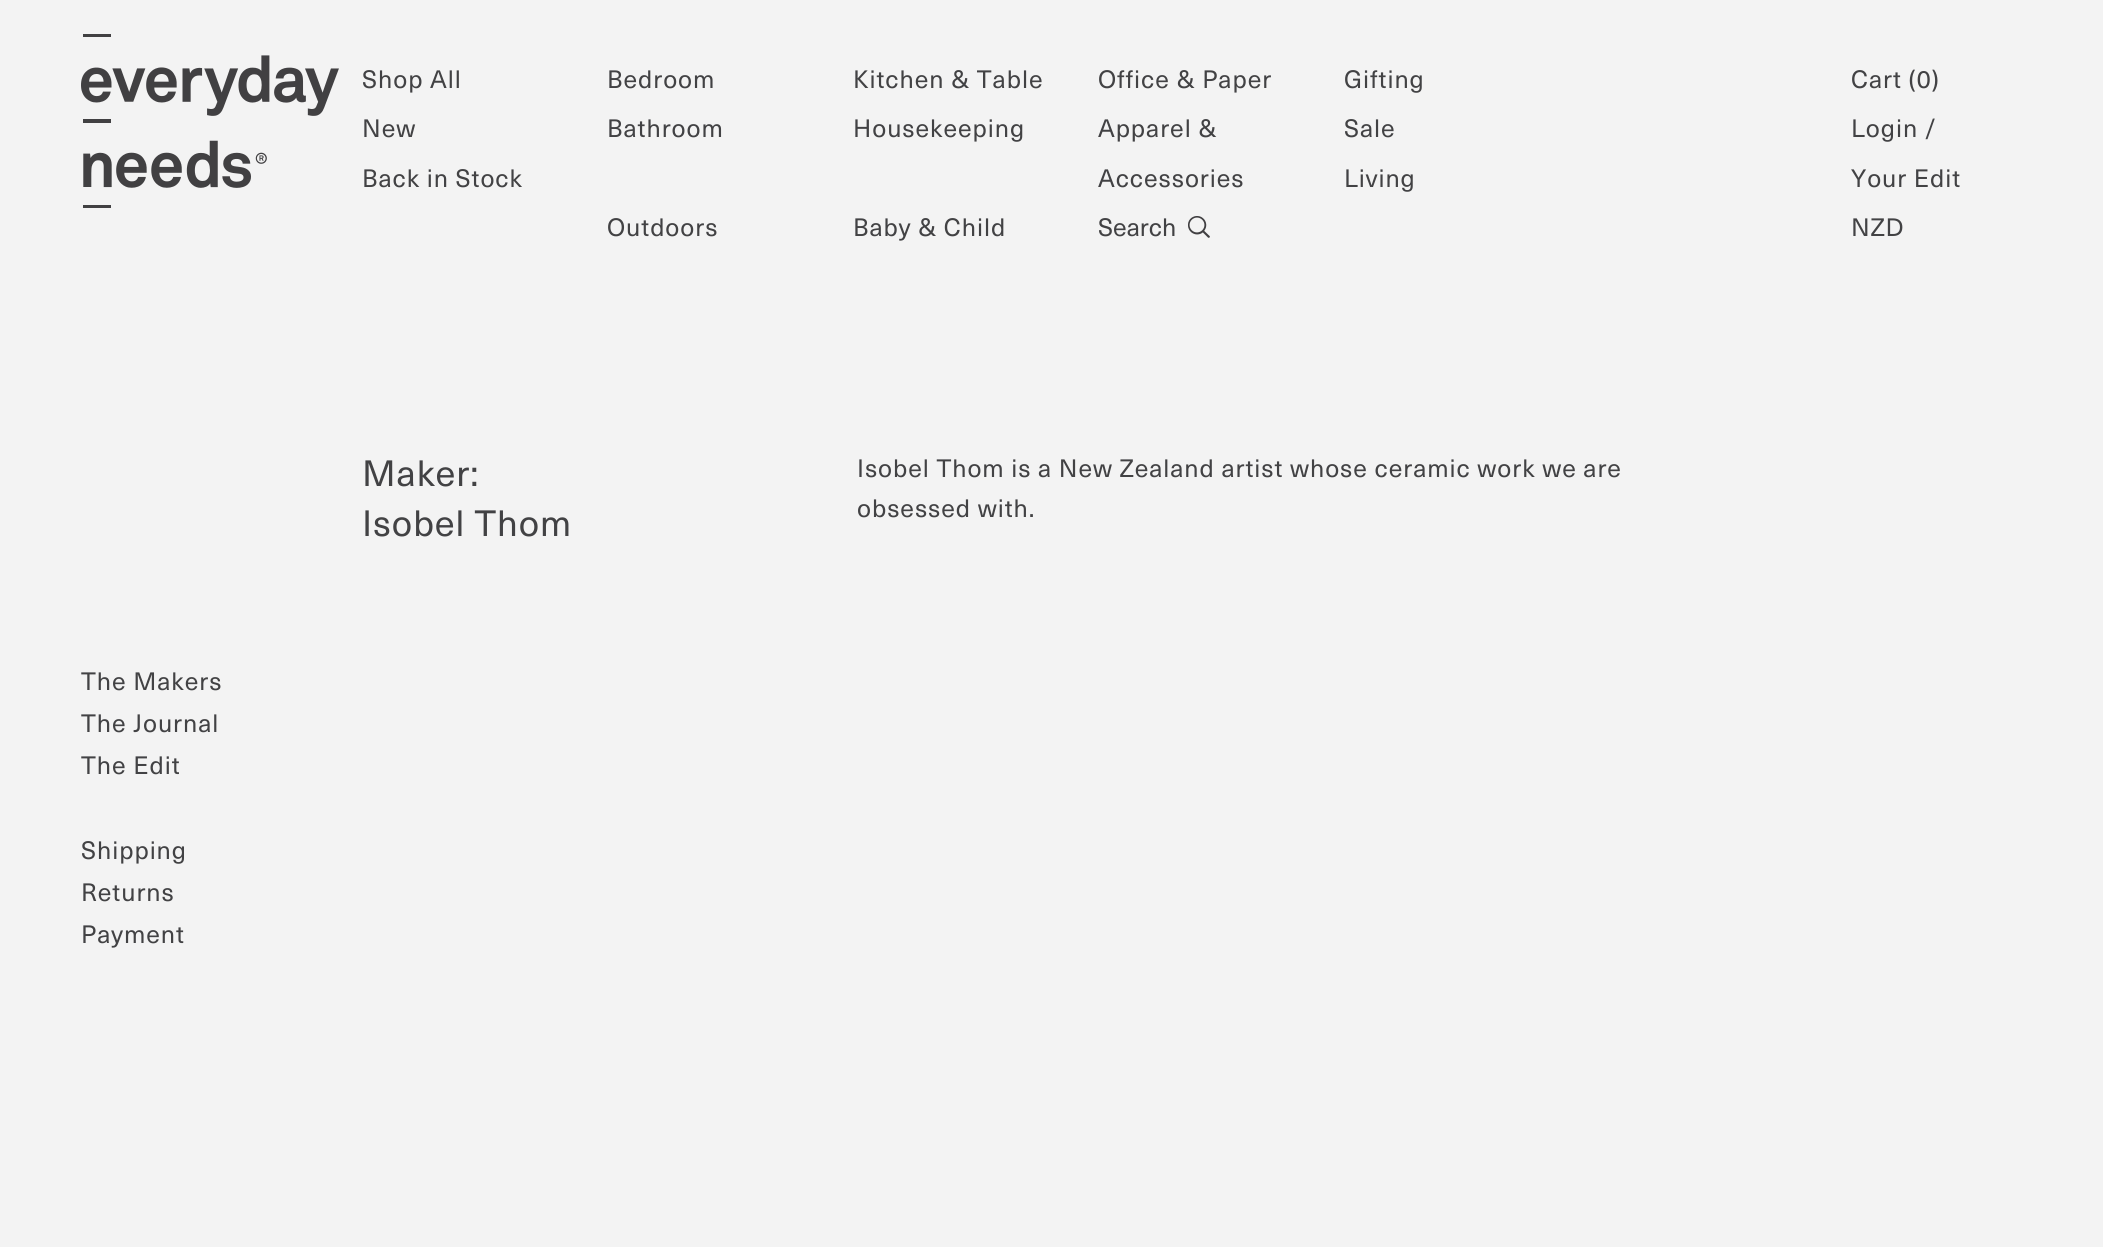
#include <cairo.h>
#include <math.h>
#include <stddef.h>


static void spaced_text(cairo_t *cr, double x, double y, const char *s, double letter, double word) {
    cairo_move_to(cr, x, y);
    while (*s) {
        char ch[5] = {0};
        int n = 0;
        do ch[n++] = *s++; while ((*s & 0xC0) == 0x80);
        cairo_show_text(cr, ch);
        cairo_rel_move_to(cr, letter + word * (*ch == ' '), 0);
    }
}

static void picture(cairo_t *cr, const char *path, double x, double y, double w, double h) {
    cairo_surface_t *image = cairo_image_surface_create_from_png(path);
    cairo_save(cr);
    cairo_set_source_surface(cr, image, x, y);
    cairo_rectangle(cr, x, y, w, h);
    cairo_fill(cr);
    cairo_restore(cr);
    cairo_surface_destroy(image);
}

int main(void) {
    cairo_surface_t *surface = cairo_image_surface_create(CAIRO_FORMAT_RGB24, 2103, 1247);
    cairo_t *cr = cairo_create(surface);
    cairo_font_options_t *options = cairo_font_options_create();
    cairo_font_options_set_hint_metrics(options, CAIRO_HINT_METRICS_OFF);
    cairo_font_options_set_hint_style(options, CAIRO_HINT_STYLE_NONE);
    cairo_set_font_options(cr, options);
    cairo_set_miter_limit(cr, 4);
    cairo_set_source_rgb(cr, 0.953, 0.953, 0.953);
    cairo_paint(cr);
    picture(cr, "img1.png", 81, 34, 258, 174);
    cairo_select_font_face(cr, "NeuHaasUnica", CAIRO_FONT_SLANT_NORMAL, CAIRO_FONT_WEIGHT_NORMAL);
    cairo_set_font_size(cr, 24.75);
    cairo_set_source_rgb(cr, 0.259, 0.259, 0.267);
    spaced_text(cr, 362, 88, "Shop All", 0.95, 0);
    spaced_text(cr, 362, 137, "New", 0.95, 0);
    spaced_text(cr, 362, 187, "Back in Stock", 0.95, 0);
    spaced_text(cr, 607, 88, "Bedroom", 0.95, 0);
    spaced_text(cr, 853, 88, "Kitchen & Table", 0.95, 0);
    spaced_text(cr, 1098, 88, "Office & Paper", 0.95, 0);
    spaced_text(cr, 1344, 88, "Gifting", 0.95, 0);
    spaced_text(cr, 607, 137, "Bathroom", 0.95, 0);
    spaced_text(cr, 853, 137, "Housekeeping", 0.95, 0);
    spaced_text(cr, 1098, 137, "Apparel &", 0.95, 0);
    spaced_text(cr, 1098, 187, "Accessories", 0.95, 0);
    spaced_text(cr, 1344, 137, "Sale", 0.95, 0);
    spaced_text(cr, 1344, 187, "Living", 0.95, 0);
    spaced_text(cr, 607, 236, "Outdoors", 0.95, 0);
    spaced_text(cr, 853, 236, "Baby & Child", 0.95, 0);
    cairo_move_to(cr, 1098, 236);
    cairo_show_text(cr, "Search");
    picture(cr, "img2.png", 1188, 216, 22, 22);
    spaced_text(cr, 1851, 88, "Cart (0)", 0.95, 0);
    spaced_text(cr, 1851, 137, "Login /", 0.95, 0);
    spaced_text(cr, 1851, 187, "Your Edit", 0.95, 0);
    spaced_text(cr, 1851, 236, "NZD", 0.95, 0);
    cairo_set_font_size(cr, 36);
    spaced_text(cr, 362, 486, "Maker:", 0.95, 0);
    spaced_text(cr, 362, 536, "Isobel Thom", 0.95, 0);
    cairo_set_font_size(cr, 24.75);
    spaced_text(cr, 857, 477, "Isobel Thom is a New Zealand artist whose ceramic work we are", 0.95, 0);
    spaced_text(cr, 857, 517, "obsessed with.", 0.95, 0);
    spaced_text(cr, 81, 690, "The Makers", 0.95, 0);
    spaced_text(cr, 81, 732, "The Journal", 0.95, 0);
    spaced_text(cr, 81, 774, "The Edit", 0.95, 0);
    spaced_text(cr, 81, 859, "Shipping", 0.95, 0);
    spaced_text(cr, 81, 901, "Returns", 0.95, 0);
    spaced_text(cr, 81, 943, "Payment", 0.95, 0);
    cairo_surface_write_to_png(surface, "page.png");
    cairo_font_options_destroy(options);
    cairo_destroy(cr);
    cairo_surface_destroy(surface);
    return 0;
}
